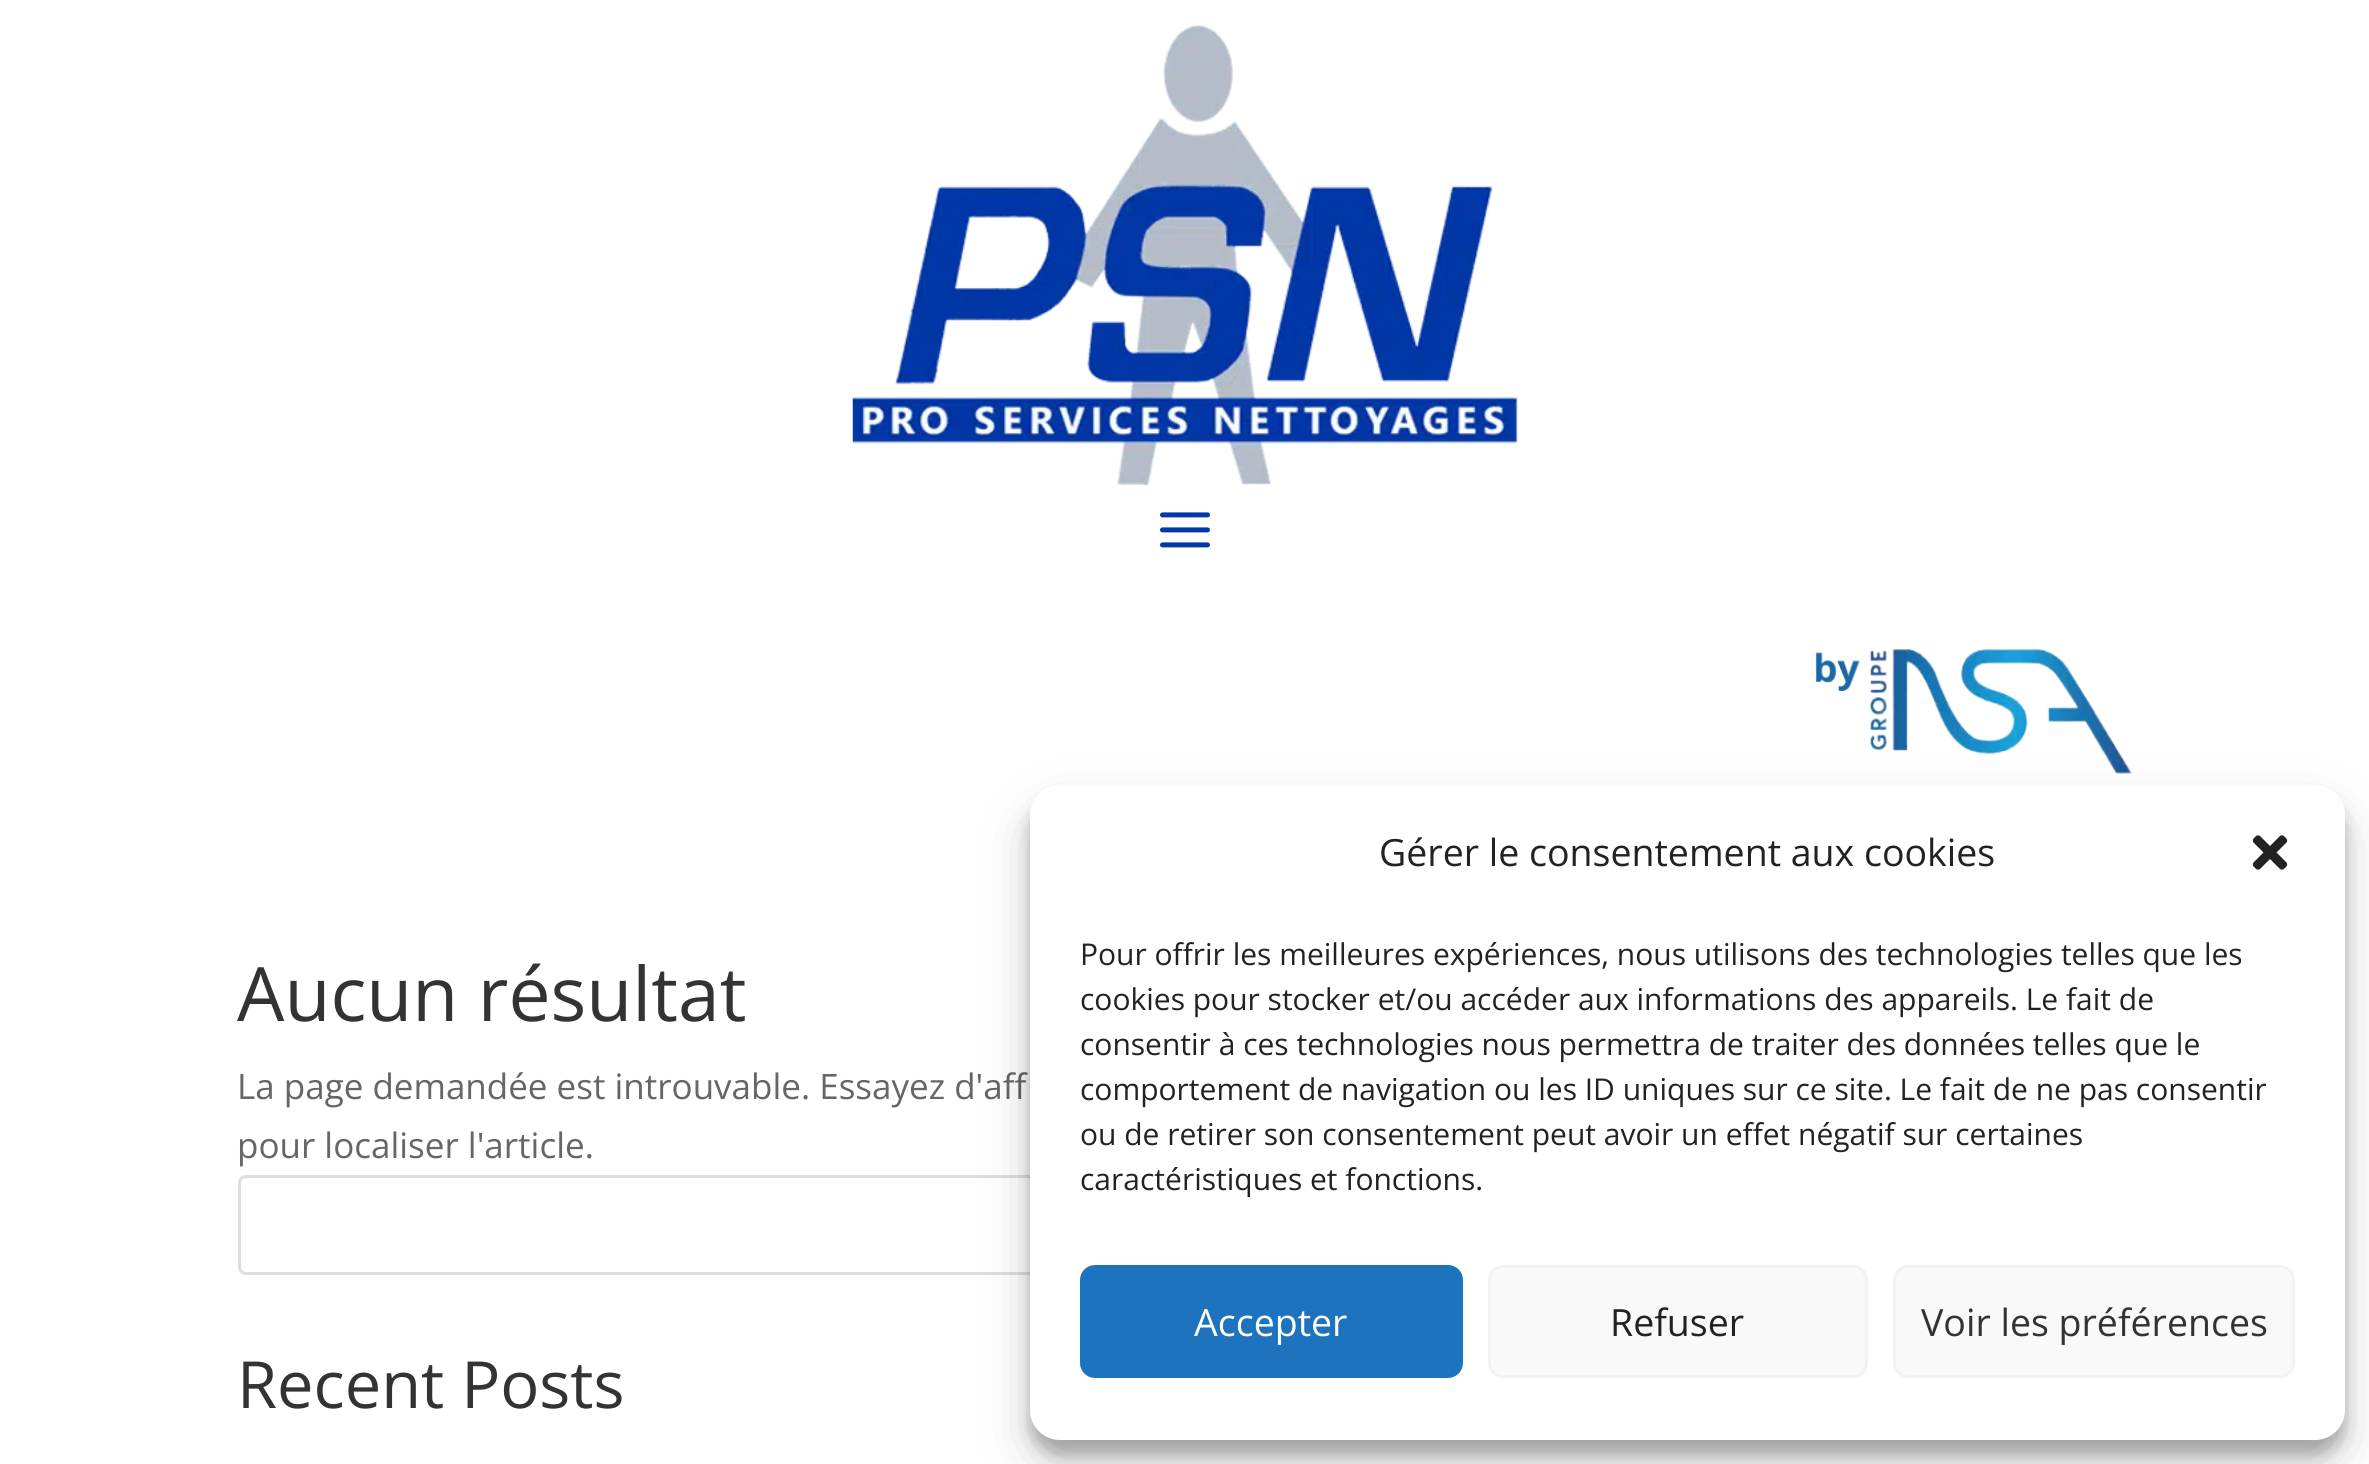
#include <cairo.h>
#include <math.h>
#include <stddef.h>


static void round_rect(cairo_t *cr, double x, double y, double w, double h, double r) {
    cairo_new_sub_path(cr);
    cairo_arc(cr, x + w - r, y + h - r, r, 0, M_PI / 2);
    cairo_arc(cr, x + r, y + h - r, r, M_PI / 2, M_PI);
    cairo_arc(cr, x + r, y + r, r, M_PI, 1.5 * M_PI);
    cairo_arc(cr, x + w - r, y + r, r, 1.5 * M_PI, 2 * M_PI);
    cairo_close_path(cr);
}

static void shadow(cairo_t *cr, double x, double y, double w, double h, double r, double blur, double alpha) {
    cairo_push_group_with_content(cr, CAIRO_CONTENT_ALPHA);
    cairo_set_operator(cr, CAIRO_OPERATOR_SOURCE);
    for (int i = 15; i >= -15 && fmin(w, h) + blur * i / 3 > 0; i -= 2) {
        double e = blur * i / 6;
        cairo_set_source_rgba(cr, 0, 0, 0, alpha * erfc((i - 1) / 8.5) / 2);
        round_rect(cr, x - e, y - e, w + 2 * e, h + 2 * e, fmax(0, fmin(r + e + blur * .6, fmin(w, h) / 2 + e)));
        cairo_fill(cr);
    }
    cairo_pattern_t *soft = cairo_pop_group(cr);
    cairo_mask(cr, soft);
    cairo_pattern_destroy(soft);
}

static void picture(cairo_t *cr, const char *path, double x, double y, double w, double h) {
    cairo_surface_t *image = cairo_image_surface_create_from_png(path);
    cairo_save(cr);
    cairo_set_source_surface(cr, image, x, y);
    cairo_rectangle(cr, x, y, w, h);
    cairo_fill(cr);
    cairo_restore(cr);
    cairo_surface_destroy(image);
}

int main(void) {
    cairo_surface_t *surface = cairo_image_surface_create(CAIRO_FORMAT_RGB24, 2369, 1464);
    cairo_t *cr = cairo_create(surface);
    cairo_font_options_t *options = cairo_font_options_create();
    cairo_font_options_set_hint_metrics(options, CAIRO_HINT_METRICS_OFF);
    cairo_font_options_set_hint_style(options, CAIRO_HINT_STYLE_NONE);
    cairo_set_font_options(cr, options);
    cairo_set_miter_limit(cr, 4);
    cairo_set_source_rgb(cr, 1, 1, 1);
    cairo_paint(cr);
    picture(cr, "img1.png", 852, 25, 666, 460);
    picture(cr, "img2.png", 1160, 512, 50, 36);
    picture(cr, "img3.png", 1815, 649, 317, 125);
    cairo_select_font_face(cr, "Open Sans", CAIRO_FONT_SLANT_NORMAL, CAIRO_FONT_WEIGHT_NORMAL);
    cairo_set_font_size(cr, 75);
    cairo_set_source_rgb(cr, 0.2, 0.2, 0.2);
    cairo_move_to(cr, 237, 1021);
    cairo_show_text(cr, "Aucun résultat");
    cairo_set_font_size(cr, 35);
    cairo_set_source_rgb(cr, 0.4, 0.4, 0.4);
    cairo_move_to(cr, 237, 1099);
    cairo_show_text(cr, "La page demandée est introuvable. Essayez d'aff");
    cairo_move_to(cr, 237, 1158);
    cairo_show_text(cr, "pour localiser l'article.");
    round_rect(cr, 239.5, 1176.5, 1892, 97, 6.5);
    cairo_set_source_rgb(cr, 0.867, 0.867, 0.867);
    cairo_set_line_width(cr, 3);
    cairo_stroke(cr);
    cairo_set_font_size(cr, 65);
    cairo_set_source_rgb(cr, 0.2, 0.2, 0.2);
    cairo_move_to(cr, 237, 1408);
    cairo_show_text(cr, "Recent Posts");
    cairo_set_source_rgb(cr, 0, 0, 0);
    shadow(cr, 1030, 800, 1315, 655, 30, 7.5, 0.23);
    shadow(cr, 1030, 810, 1315, 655, 30, 25, 0.19);
    cairo_set_source_rgb(cr, 1, 1, 1);
    round_rect(cr, 1030, 785, 1315, 655, 30);
    cairo_fill(cr);
    cairo_set_font_size(cr, 37.5);
    cairo_set_source_rgb(cr, 0.133, 0.133, 0.133);
    cairo_move_to(cr, 1379, 866);
    cairo_show_text(cr, "Gérer le consentement aux cookies");
    picture(cr, "img4.png", 2252, 835, 36, 35);
    cairo_set_font_size(cr, 30);
    cairo_move_to(cr, 1080, 965);
    cairo_show_text(cr, "Pour offrir les meilleures expériences, nous utilisons des technologies telles que les");
    cairo_move_to(cr, 1080, 1010);
    cairo_show_text(cr, "cookies pour stocker et/ou accéder aux informations des appareils. Le fait de");
    cairo_move_to(cr, 1080, 1055);
    cairo_show_text(cr, "consentir à ces technologies nous permettra de traiter des données telles que le");
    cairo_move_to(cr, 1080, 1100);
    cairo_show_text(cr, "comportement de navigation ou les ID uniques sur ce site. Le fait de ne pas consentir");
    cairo_move_to(cr, 1080, 1145);
    cairo_show_text(cr, "ou de retirer son consentement peut avoir un effet négatif sur certaines");
    cairo_move_to(cr, 1080, 1190);
    cairo_show_text(cr, "caractéristiques et fonctions.");
    cairo_set_source_rgb(cr, 0.118, 0.451, 0.745);
    round_rect(cr, 1081.5, 1266.5, 380, 110, 13.5);
    cairo_fill_preserve(cr);
    cairo_stroke(cr);
    cairo_set_font_size(cr, 37.5);
    cairo_set_source_rgb(cr, 1, 1, 1);
    cairo_move_to(cr, 1194, 1336);
    cairo_show_text(cr, "Accepter");
    cairo_set_source_rgb(cr, 0.976, 0.976, 0.976);
    round_rect(cr, 1489.5, 1266.5, 377, 110, 13.5);
    cairo_fill_preserve(cr);
    cairo_set_source_rgb(cr, 0.949, 0.949, 0.949);
    cairo_stroke(cr);
    cairo_set_source_rgb(cr, 0.133, 0.133, 0.133);
    cairo_move_to(cr, 1610, 1336);
    cairo_show_text(cr, "Refuser");
    cairo_set_source_rgb(cr, 0.976, 0.976, 0.976);
    round_rect(cr, 1894.5, 1266.5, 399, 110, 13.5);
    cairo_fill_preserve(cr);
    cairo_set_source_rgb(cr, 0.949, 0.949, 0.949);
    cairo_stroke(cr);
    cairo_set_source_rgb(cr, 0.2, 0.2, 0.2);
    cairo_move_to(cr, 1921, 1336);
    cairo_show_text(cr, "Voir les préférences");
    cairo_surface_write_to_png(surface, "page.png");
    cairo_font_options_destroy(options);
    cairo_destroy(cr);
    cairo_surface_destroy(surface);
    return 0;
}
